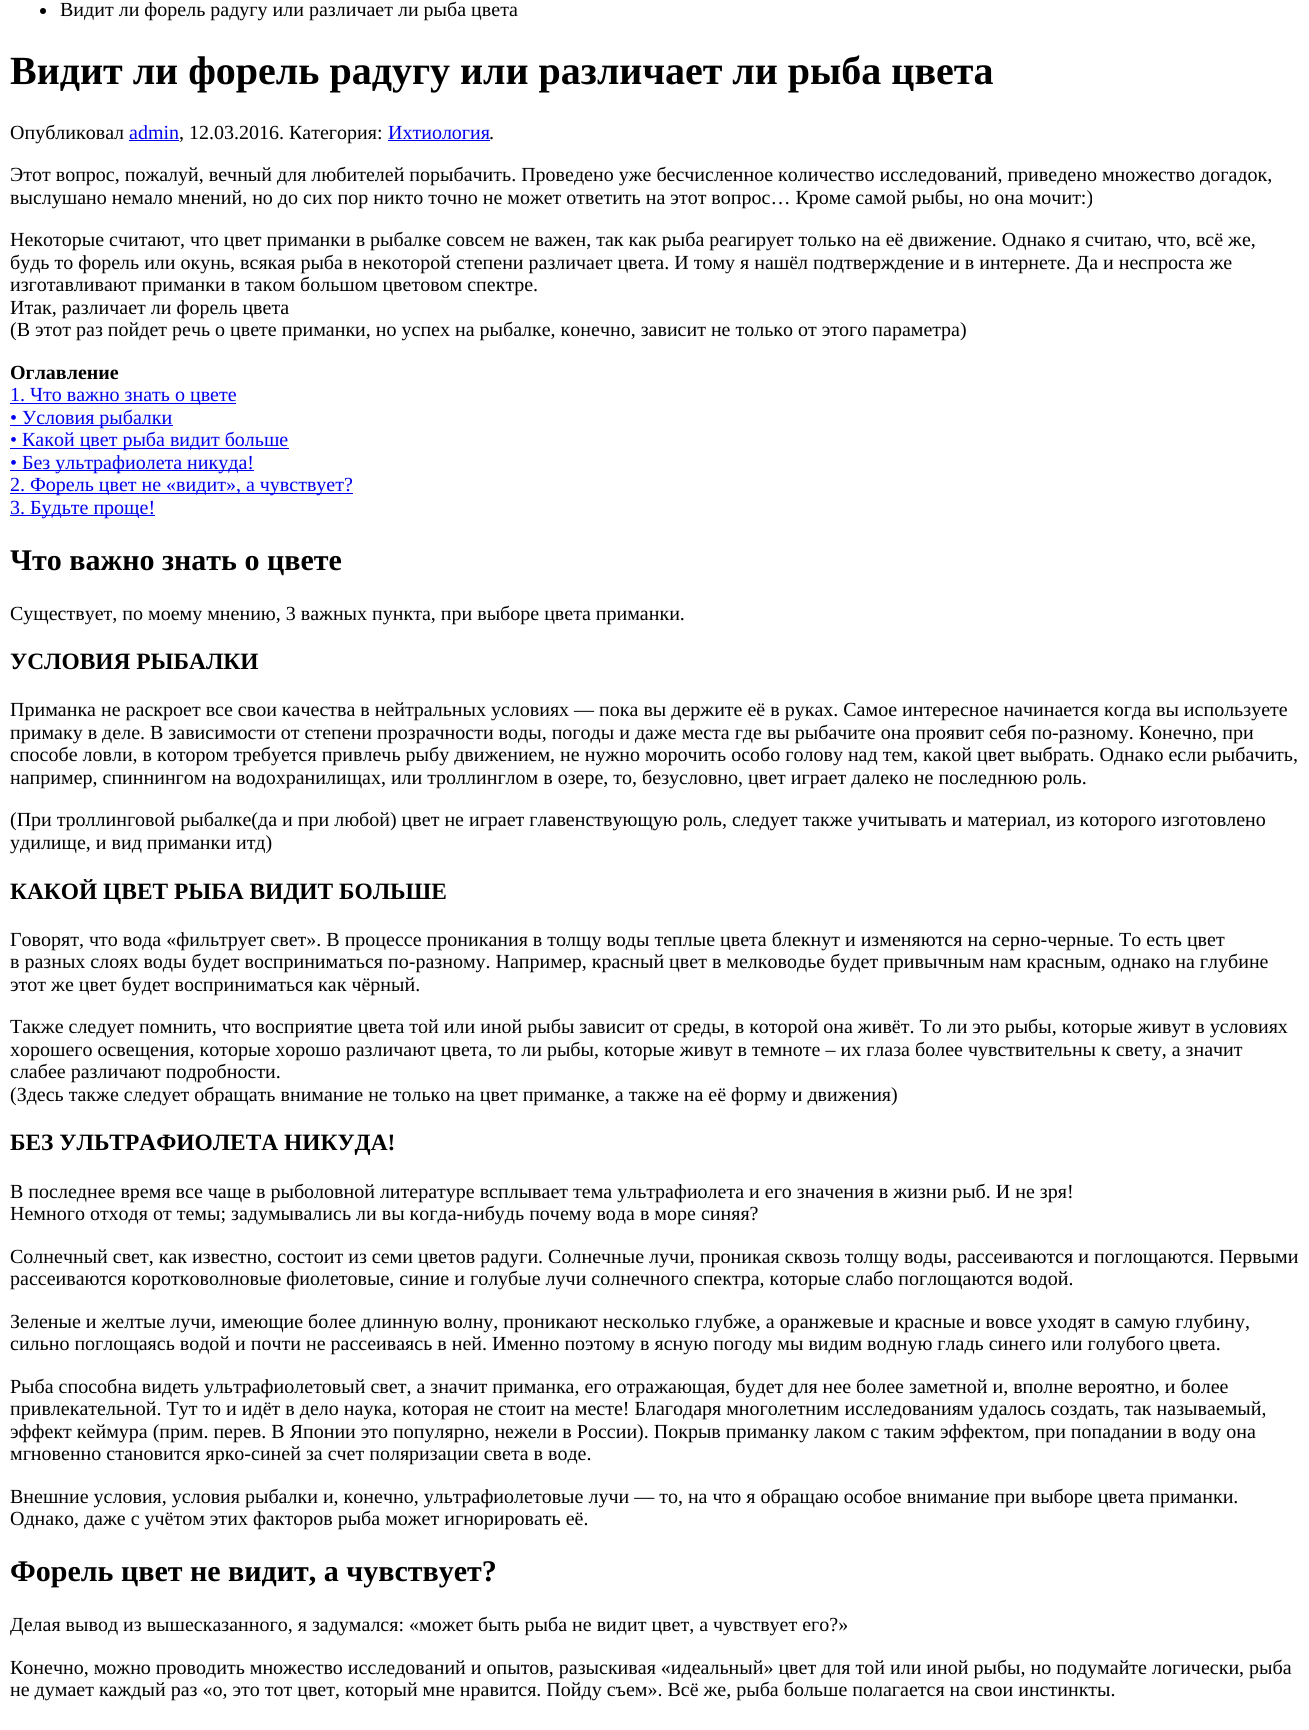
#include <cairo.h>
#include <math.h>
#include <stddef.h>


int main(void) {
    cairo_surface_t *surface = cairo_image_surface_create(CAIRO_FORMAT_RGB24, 1309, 1730);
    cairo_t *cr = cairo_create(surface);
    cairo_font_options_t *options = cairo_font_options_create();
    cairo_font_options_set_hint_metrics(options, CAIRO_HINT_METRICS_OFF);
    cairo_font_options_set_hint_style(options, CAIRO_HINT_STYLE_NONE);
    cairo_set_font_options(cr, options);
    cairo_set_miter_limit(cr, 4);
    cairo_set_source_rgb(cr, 1, 1, 1);
    cairo_paint(cr);
    cairo_set_source_rgb(cr, 0, 0, 0);
    cairo_arc(cr, 43, 11, 3, 0, 2 * M_PI);
    cairo_fill(cr);
    cairo_select_font_face(cr, "Liberation Serif", CAIRO_FONT_SLANT_NORMAL, CAIRO_FONT_WEIGHT_NORMAL);
    cairo_set_font_size(cr, 20);
    cairo_move_to(cr, 60, 16);
    cairo_show_text(cr, "Видит ли форель радугу или различает ли рыба цвета");
    cairo_select_font_face(cr, "Liberation Serif", CAIRO_FONT_SLANT_NORMAL, CAIRO_FONT_WEIGHT_BOLD);
    cairo_set_font_size(cr, 40);
    cairo_move_to(cr, 10, 84);
    cairo_show_text(cr, "Видит ли форель радугу или различает ли рыба цвета");
    cairo_select_font_face(cr, "Liberation Serif", CAIRO_FONT_SLANT_NORMAL, CAIRO_FONT_WEIGHT_NORMAL);
    cairo_set_font_size(cr, 20);
    cairo_move_to(cr, 10, 139);
    cairo_show_text(cr, "Опубликовал");
    cairo_set_source_rgb(cr, 0, 0, 0.933);
    cairo_move_to(cr, 129, 139);
    cairo_show_text(cr, "admin");
    cairo_rectangle(cr, 129, 140, 50, 1);
    cairo_fill(cr);
    cairo_set_source_rgb(cr, 0, 0, 0);
    cairo_move_to(cr, 179, 139);
    cairo_show_text(cr, ", 12.03.2016. Категория:");
    cairo_set_source_rgb(cr, 0, 0, 0.933);
    cairo_move_to(cr, 388, 139);
    cairo_show_text(cr, "Ихтиология");
    cairo_rectangle(cr, 388, 140, 102, 1);
    cairo_fill(cr);
    cairo_set_source_rgb(cr, 0, 0, 0);
    cairo_move_to(cr, 489, 139);
    cairo_show_text(cr, ".");
    cairo_move_to(cr, 10, 181);
    cairo_show_text(cr, "Этот вопрос, пожалуй, вечный для любителей порыбачить. Проведено уже бесчисленное количество исследований, приведено множество догадок,");
    cairo_move_to(cr, 10, 204);
    cairo_show_text(cr, "выслушано немало мнений, но до сих пор никто точно не может ответить на этот вопрос… Кроме самой рыбы, но она мочит:)");
    cairo_move_to(cr, 10, 246);
    cairo_show_text(cr, "Некоторые считают, что цвет приманки в рыбалке совсем не важен, так как рыба реагирует только на её движение. Однако я считаю, что, всё же,");
    cairo_move_to(cr, 10, 269);
    cairo_show_text(cr, "будь то форель или окунь, всякая рыба в некоторой степени различает цвета. И тому я нашёл подтверждение и в интернете. Да и неспроста же");
    cairo_move_to(cr, 10, 291);
    cairo_show_text(cr, "изготавливают приманки в таком большом цветовом спектре.");
    cairo_move_to(cr, 10, 314);
    cairo_show_text(cr, "Итак, различает ли форель цвета");
    cairo_move_to(cr, 10, 336);
    cairo_show_text(cr, "(В этот раз пойдет речь о цвете приманки, но успех на рыбалке, конечно, зависит не только от этого параметра)");
    cairo_select_font_face(cr, "Liberation Serif", CAIRO_FONT_SLANT_NORMAL, CAIRO_FONT_WEIGHT_BOLD);
    cairo_move_to(cr, 10, 379);
    cairo_show_text(cr, "Оглавление");
    cairo_set_source_rgb(cr, 0, 0, 0.933);
    cairo_rectangle(cr, 10, 403, 226, 1);
    cairo_fill(cr);
    cairo_select_font_face(cr, "Liberation Serif", CAIRO_FONT_SLANT_NORMAL, CAIRO_FONT_WEIGHT_NORMAL);
    cairo_move_to(cr, 10, 401);
    cairo_show_text(cr, "1. Что важно знать о цвете");
    cairo_rectangle(cr, 10, 425, 163, 1);
    cairo_fill(cr);
    cairo_move_to(cr, 10, 424);
    cairo_show_text(cr, "• Условия рыбалки");
    cairo_rectangle(cr, 10, 448, 279, 1);
    cairo_fill(cr);
    cairo_move_to(cr, 10, 446);
    cairo_show_text(cr, "• Какой цвет рыба видит больше");
    cairo_rectangle(cr, 10, 470, 244, 1);
    cairo_fill(cr);
    cairo_move_to(cr, 10, 469);
    cairo_show_text(cr, "• Без ультрафиолета никуда!");
    cairo_rectangle(cr, 10, 493, 343, 1);
    cairo_fill(cr);
    cairo_move_to(cr, 10, 491);
    cairo_show_text(cr, "2. Форель цвет не «видит», а чувствует?");
    cairo_rectangle(cr, 10, 515, 145, 1);
    cairo_fill(cr);
    cairo_move_to(cr, 10, 514);
    cairo_show_text(cr, "3. Будьте проще!");
    cairo_select_font_face(cr, "Liberation Serif", CAIRO_FONT_SLANT_NORMAL, CAIRO_FONT_WEIGHT_BOLD);
    cairo_set_font_size(cr, 30);
    cairo_set_source_rgb(cr, 0, 0, 0);
    cairo_move_to(cr, 10, 570);
    cairo_show_text(cr, "Что важно знать о цвете");
    cairo_select_font_face(cr, "Liberation Serif", CAIRO_FONT_SLANT_NORMAL, CAIRO_FONT_WEIGHT_NORMAL);
    cairo_set_font_size(cr, 20);
    cairo_move_to(cr, 10, 620);
    cairo_show_text(cr, "Существует, по моему мнению, 3 важных пункта, при выборе цвета приманки.");
    cairo_select_font_face(cr, "Liberation Serif", CAIRO_FONT_SLANT_NORMAL, CAIRO_FONT_WEIGHT_BOLD);
    cairo_set_font_size(cr, 23.4);
    cairo_move_to(cr, 10, 669);
    cairo_show_text(cr, "УСЛОВИЯ РЫБАЛКИ");
    cairo_select_font_face(cr, "Liberation Serif", CAIRO_FONT_SLANT_NORMAL, CAIRO_FONT_WEIGHT_NORMAL);
    cairo_set_font_size(cr, 20);
    cairo_move_to(cr, 10, 716);
    cairo_show_text(cr, "Приманка не раскроет все свои качества в нейтральных условиях — пока вы держите её в руках. Самое интересное начинается когда вы используете");
    cairo_move_to(cr, 10, 739);
    cairo_show_text(cr, "примаку в деле. В зависимости от степени прозрачности воды, погоды и даже места где вы рыбачите она проявит себя по-разному. Конечно, при");
    cairo_move_to(cr, 10, 761);
    cairo_show_text(cr, "способе ловли, в котором требуется привлечь рыбу движением, не нужно морочить особо голову над тем, какой цвет выбрать. Однако если рыбачить,");
    cairo_move_to(cr, 10, 784);
    cairo_show_text(cr, "например, спиннингом на водохранилищах, или троллинглом в озере, то, безусловно, цвет играет далеко не последнюю роль.");
    cairo_move_to(cr, 10, 826);
    cairo_show_text(cr, "(При троллинговой рыбалке(да и при любой) цвет не играет главенствующую роль, следует также учитывать и материал, из которого изготовлено");
    cairo_move_to(cr, 10, 849);
    cairo_show_text(cr, "удилище, и вид приманки итд)");
    cairo_select_font_face(cr, "Liberation Serif", CAIRO_FONT_SLANT_NORMAL, CAIRO_FONT_WEIGHT_BOLD);
    cairo_set_font_size(cr, 23.4);
    cairo_move_to(cr, 10, 899);
    cairo_show_text(cr, "КАКОЙ ЦВЕТ РЫБА ВИДИТ БОЛЬШЕ");
    cairo_select_font_face(cr, "Liberation Serif", CAIRO_FONT_SLANT_NORMAL, CAIRO_FONT_WEIGHT_NORMAL);
    cairo_set_font_size(cr, 20);
    cairo_move_to(cr, 10, 946);
    cairo_show_text(cr, "Говорят, что вода «фильтрует свет». В процессе проникания в толщу воды теплые цвета блекнут и изменяются на серно-черные. То есть цвет");
    cairo_move_to(cr, 10, 968);
    cairo_show_text(cr, "в разных слоях воды будет восприниматься по-разному. Например, красный цвет в мелководье будет привычным нам красным, однако на глубине");
    cairo_move_to(cr, 10, 991);
    cairo_show_text(cr, "этот же цвет будет восприниматься как чёрный.");
    cairo_move_to(cr, 10, 1033);
    cairo_show_text(cr, "Также следует помнить, что восприятие цвета той или иной рыбы зависит от среды, в которой она живёт. То ли это рыбы, которые живут в условиях");
    cairo_move_to(cr, 10, 1056);
    cairo_show_text(cr, "хорошего освещения, которые хорошо различают цвета, то ли рыбы, которые живут в темноте ‒ их глаза более чувствительны к свету, а значит");
    cairo_move_to(cr, 10, 1078);
    cairo_show_text(cr, "слабее различают подробности.");
    cairo_move_to(cr, 10, 1101);
    cairo_show_text(cr, "(Здесь также следует обращать внимание не только на цвет приманке, а также на её форму и движения)");
    cairo_select_font_face(cr, "Liberation Serif", CAIRO_FONT_SLANT_NORMAL, CAIRO_FONT_WEIGHT_BOLD);
    cairo_set_font_size(cr, 23.4);
    cairo_move_to(cr, 10, 1150);
    cairo_show_text(cr, "БЕЗ УЛЬТРАФИОЛЕТА НИКУДА!");
    cairo_select_font_face(cr, "Liberation Serif", CAIRO_FONT_SLANT_NORMAL, CAIRO_FONT_WEIGHT_NORMAL);
    cairo_set_font_size(cr, 20);
    cairo_move_to(cr, 10, 1198);
    cairo_show_text(cr, "В последнее время все чаще в рыболовной литературе всплывает тема ультрафиолета и его значения в жизни рыб. И не зря!");
    cairo_move_to(cr, 10, 1220);
    cairo_show_text(cr, "Немного отходя от темы; задумывались ли вы когда-нибудь почему вода в море синяя?");
    cairo_move_to(cr, 10, 1263);
    cairo_show_text(cr, "Солнечный свет, как известно, состоит из семи цветов радуги. Солнечные лучи, проникая сквозь толщу воды, рассеиваются и поглощаются. Первыми");
    cairo_move_to(cr, 10, 1285);
    cairo_show_text(cr, "рассеиваются коротковолновые фиолетовые, синие и голубые лучи солнечного спектра, которые слабо поглощаются водой.");
    cairo_move_to(cr, 10, 1328);
    cairo_show_text(cr, "Зеленые и желтые лучи, имеющие более длинную волну, проникают несколько глубже, а оранжевые и красные и вовсе уходят в самую глубину,");
    cairo_move_to(cr, 10, 1350);
    cairo_show_text(cr, "сильно поглощаясь водой и почти не рассеиваясь в ней. Именно поэтому в ясную погоду мы видим водную гладь синего или голубого цвета.");
    cairo_move_to(cr, 10, 1393);
    cairo_show_text(cr, "Рыба способна видеть ультрафиолетовый свет, а значит приманка, его отражающая, будет для нее более заметной и, вполне вероятно, и более");
    cairo_move_to(cr, 10, 1415);
    cairo_show_text(cr, "привлекательной. Тут то и идёт в дело наука, которая не стоит на месте! Благодаря многолетним исследованиям удалось создать, так называемый,");
    cairo_move_to(cr, 10, 1438);
    cairo_show_text(cr, "эффект кеймура (прим. перев. В Японии это популярно, нежели в России). Покрыв приманку лаком с таким эффектом, при попадании в воду она");
    cairo_move_to(cr, 10, 1460);
    cairo_show_text(cr, "мгновенно становится ярко-синей за счет поляризации света в воде.");
    cairo_move_to(cr, 10, 1503);
    cairo_show_text(cr, "Внешние условия, условия рыбалки и, конечно, ультрафиолетовые лучи — то, на что я обращаю особое внимание при выборе цвета приманки.");
    cairo_move_to(cr, 10, 1525);
    cairo_show_text(cr, "Однако, даже с учётом этих факторов рыба может игнорировать её.");
    cairo_select_font_face(cr, "Liberation Serif", CAIRO_FONT_SLANT_NORMAL, CAIRO_FONT_WEIGHT_BOLD);
    cairo_set_font_size(cr, 30);
    cairo_move_to(cr, 10, 1581);
    cairo_show_text(cr, "Форель цвет не видит, а чувствует?");
    cairo_select_font_face(cr, "Liberation Serif", CAIRO_FONT_SLANT_NORMAL, CAIRO_FONT_WEIGHT_NORMAL);
    cairo_set_font_size(cr, 20);
    cairo_move_to(cr, 10, 1631);
    cairo_show_text(cr, "Делая вывод из вышесказанного, я задумался: «может быть рыба не видит цвет, а чувствует его?»");
    cairo_move_to(cr, 10, 1674);
    cairo_show_text(cr, "Конечно, можно проводить множество исследований и опытов, разыскивая «идеальный» цвет для той или иной рыбы, но подумайте логически, рыба");
    cairo_move_to(cr, 10, 1696);
    cairo_show_text(cr, "не думает каждый раз «о, это тот цвет, который мне нравится. Пойду съем». Всё же, рыба больше полагается на свои инстинкты.");
    cairo_surface_write_to_png(surface, "page.png");
    cairo_font_options_destroy(options);
    cairo_destroy(cr);
    cairo_surface_destroy(surface);
    return 0;
}
